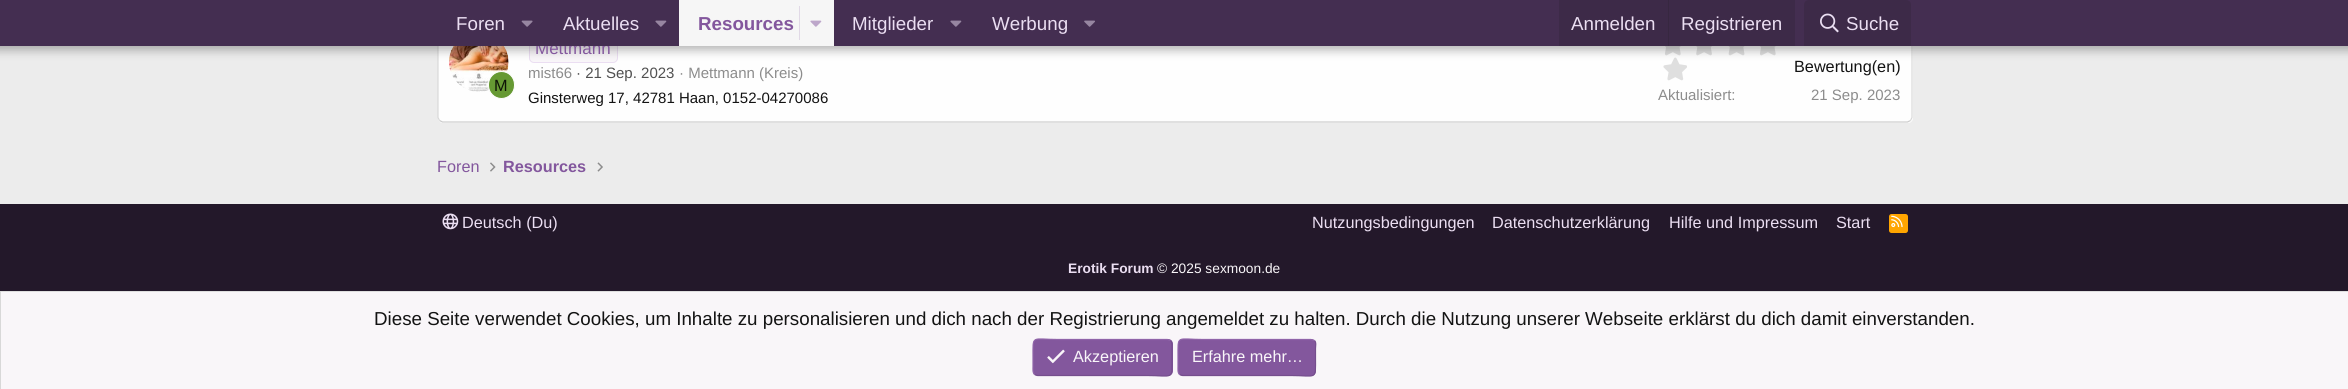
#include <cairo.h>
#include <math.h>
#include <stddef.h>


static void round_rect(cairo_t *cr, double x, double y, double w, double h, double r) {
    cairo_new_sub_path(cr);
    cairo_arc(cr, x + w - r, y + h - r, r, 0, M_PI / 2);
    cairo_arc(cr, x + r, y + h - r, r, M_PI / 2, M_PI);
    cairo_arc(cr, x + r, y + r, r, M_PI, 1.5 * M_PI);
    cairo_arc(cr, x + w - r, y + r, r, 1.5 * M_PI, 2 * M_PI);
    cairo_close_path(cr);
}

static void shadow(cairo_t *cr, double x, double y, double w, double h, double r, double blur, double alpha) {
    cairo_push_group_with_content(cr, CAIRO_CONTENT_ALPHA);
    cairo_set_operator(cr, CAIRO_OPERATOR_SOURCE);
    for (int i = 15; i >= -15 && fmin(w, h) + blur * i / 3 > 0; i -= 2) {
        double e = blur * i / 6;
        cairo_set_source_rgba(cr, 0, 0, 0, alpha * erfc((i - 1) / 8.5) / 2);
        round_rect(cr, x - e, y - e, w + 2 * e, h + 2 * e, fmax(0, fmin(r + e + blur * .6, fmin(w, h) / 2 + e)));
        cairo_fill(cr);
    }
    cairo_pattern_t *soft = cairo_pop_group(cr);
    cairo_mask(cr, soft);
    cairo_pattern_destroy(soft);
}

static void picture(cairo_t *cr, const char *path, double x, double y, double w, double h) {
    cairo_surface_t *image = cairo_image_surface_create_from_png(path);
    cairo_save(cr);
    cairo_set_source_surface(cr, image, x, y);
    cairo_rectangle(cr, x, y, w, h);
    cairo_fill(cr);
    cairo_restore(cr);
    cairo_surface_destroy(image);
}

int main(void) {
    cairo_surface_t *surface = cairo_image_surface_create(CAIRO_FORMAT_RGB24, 2348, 389);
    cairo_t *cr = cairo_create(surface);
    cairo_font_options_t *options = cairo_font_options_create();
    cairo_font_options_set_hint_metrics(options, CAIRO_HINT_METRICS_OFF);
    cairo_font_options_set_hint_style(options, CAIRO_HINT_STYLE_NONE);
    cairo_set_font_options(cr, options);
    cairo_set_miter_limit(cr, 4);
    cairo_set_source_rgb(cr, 0.925, 0.925, 0.925);
    cairo_paint(cr);
    cairo_set_source_rgb(cr, 0.996, 0.996, 0.996);
    round_rect(cr, 438, -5, 1475, 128, 5);
    cairo_fill(cr);
    cairo_new_path(cr);
    cairo_move_to(cr, 1910.5, -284.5);
    cairo_line_to(cr, 1912, -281);
    cairo_line_to(cr, 1912, 117.5);
    cairo_line_to(cr, 1910.5, 120.5);
    cairo_set_source_rgb(cr, 0.847, 0.847, 0.847);
    cairo_set_line_width(cr, 1.2);
    cairo_stroke(cr);
    cairo_new_path(cr);
    cairo_move_to(cr, 1910.5, 120.5);
    cairo_line_to(cr, 1907.5, 122);
    cairo_line_to(cr, 442.5, 122);
    cairo_line_to(cr, 439.5, 120.5);
    cairo_set_source_rgb(cr, 0.796, 0.796, 0.796);
    cairo_stroke(cr);
    cairo_new_path(cr);
    cairo_move_to(cr, 439.5, 120.5);
    cairo_line_to(cr, 438, 117.5);
    cairo_line_to(cr, 438, -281);
    cairo_line_to(cr, 439.5, -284.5);
    cairo_set_source_rgb(cr, 0.847, 0.847, 0.847);
    cairo_stroke(cr);
    picture(cr, "img6.png", 449, 46, 60, 46);
    cairo_set_source_rgb(cr, 0.976, 0.961, 0.976);
    round_rect(cr, 529.5, 35.5, 88, 27, 4.5);
    cairo_fill_preserve(cr);
    cairo_set_source_rgb(cr, 0.918, 0.871, 0.949);
    cairo_set_line_width(cr, 1);
    cairo_stroke(cr);
    picture(cr, "img7.png", 1664, 46, 17, 10);
    picture(cr, "img8.png", 1696, 46, 16, 10);
    picture(cr, "img9.png", 1728, 46, 17, 10);
    picture(cr, "img7.png", 1759, 46, 17, 10);
    picture(cr, "img10.png", 1663, 57, 24, 24);
    cairo_set_source_rgb(cr, 0, 0, 0);
    shadow(cr, -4, -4, 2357, 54, 0, 5, 0.3);
    cairo_select_font_face(cr, "Liberation Sans", CAIRO_FONT_SLANT_NORMAL, CAIRO_FONT_WEIGHT_NORMAL);
    cairo_set_font_size(cr, 17);
    cairo_set_source_rgb(cr, 0.514, 0.341, 0.616);
    cairo_move_to(cr, 535, 54);
    cairo_show_text(cr, "Mettmann");
    cairo_set_source_rgb(cr, 0.267, 0.18, 0.318);
    cairo_rectangle(cr, 0, 0, 2348, 46);
    cairo_fill(cr);
    cairo_set_font_size(cr, 18.75);
    cairo_set_source_rgb(cr, 0.918, 0.871, 0.949);
    cairo_move_to(cr, 456, 30);
    cairo_show_text(cr, "Foren");
    picture(cr, "img1.png", 521, 20, 12, 7);
    cairo_move_to(cr, 563, 30);
    cairo_show_text(cr, "Aktuelles");
    picture(cr, "img2.png", 655, 20, 12, 7);
    cairo_set_source_rgb(cr, 0.961, 0.961, 0.961);
    cairo_rectangle(cr, 679, 0, 155, 46);
    cairo_fill(cr);
    cairo_select_font_face(cr, "Liberation Sans", CAIRO_FONT_SLANT_NORMAL, CAIRO_FONT_WEIGHT_BOLD);
    cairo_set_source_rgb(cr, 0.514, 0.341, 0.616);
    cairo_move_to(cr, 698, 30);
    cairo_show_text(cr, "Resources");
    cairo_set_source_rgb(cr, 0.882, 0.851, 0.902);
    cairo_rectangle(cr, 799, 6, 1, 34);
    cairo_fill(cr);
    picture(cr, "img3.png", 810, 20, 12, 7);
    cairo_select_font_face(cr, "Liberation Sans", CAIRO_FONT_SLANT_NORMAL, CAIRO_FONT_WEIGHT_NORMAL);
    cairo_set_source_rgb(cr, 0.918, 0.871, 0.949);
    cairo_move_to(cr, 852, 30);
    cairo_show_text(cr, "Mitglieder");
    picture(cr, "img2.png", 950, 20, 12, 7);
    cairo_move_to(cr, 992, 30);
    cairo_show_text(cr, "Werbung");
    picture(cr, "img4.png", 1084, 20, 11, 7);
    cairo_set_source_rgb(cr, 0.239, 0.165, 0.282);
    cairo_rectangle(cr, 1559, 0, 236, 46);
    cairo_fill(cr);
    cairo_set_source_rgb(cr, 0.918, 0.871, 0.949);
    cairo_move_to(cr, 1571, 30);
    cairo_show_text(cr, "Anmelden");
    cairo_set_source_rgb(cr, 0.216, 0.153, 0.251);
    cairo_rectangle(cr, 1668, 0, 1, 46);
    cairo_fill(cr);
    cairo_set_source_rgb(cr, 0.918, 0.871, 0.949);
    cairo_move_to(cr, 1681, 30);
    cairo_show_text(cr, "Registrieren");
    cairo_set_source_rgb(cr, 0.239, 0.165, 0.282);
    cairo_new_path(cr);
    cairo_move_to(cr, 1809, 0);
    cairo_line_to(cr, 1906, 0);
    cairo_curve_to(cr, 1909, 0, 1911, 2, 1911, 5);
    cairo_line_to(cr, 1911, 46);
    cairo_line_to(cr, 1804, 46);
    cairo_line_to(cr, 1804, 5);
    cairo_curve_to(cr, 1804, 2, 1806, 0, 1809, 0);
    cairo_close_path(cr);
    cairo_fill(cr);
    picture(cr, "img5.png", 1820, 13, 19, 20);
    cairo_set_source_rgb(cr, 0.918, 0.871, 0.949);
    cairo_move_to(cr, 1846, 30);
    cairo_show_text(cr, "Suche");
    cairo_set_source_rgb(cr, 0.4, 0.6, 0.2);
    round_rect(cr, 488.5, 71.5, 26, 27, 13);
    cairo_fill_preserve(cr);
    cairo_set_source_rgb(cr, 0.996, 0.996, 0.996);
    cairo_stroke(cr);
    cairo_set_font_size(cr, 16.25);
    cairo_set_source_rgb(cr, 0.051, 0.075, 0.024);
    cairo_move_to(cr, 494, 91);
    cairo_show_text(cr, "M");
    cairo_set_font_size(cr, 15);
    cairo_set_source_rgb(cr, 0.549, 0.549, 0.549);
    cairo_move_to(cr, 528, 78);
    cairo_show_text(cr, "mist66");
    cairo_set_source_rgb(cr, 0.314, 0.314, 0.314);
    cairo_move_to(cr, 576, 78);
    cairo_show_text(cr, "· 21 Sep. 2023");
    cairo_set_source_rgb(cr, 0.549, 0.549, 0.549);
    cairo_move_to(cr, 679, 78);
    cairo_show_text(cr, "· Mettmann (Kreis)");
    cairo_set_source_rgb(cr, 0.078, 0.078, 0.078);
    cairo_move_to(cr, 528, 103);
    cairo_show_text(cr, "Ginsterweg 17, 42781 Haan, 0152-04270086");
    cairo_set_font_size(cr, 16.25);
    cairo_move_to(cr, 1794, 72);
    cairo_show_text(cr, "Bewertung(en)");
    cairo_set_font_size(cr, 15);
    cairo_set_source_rgb(cr, 0.549, 0.549, 0.549);
    cairo_move_to(cr, 1658, 100);
    cairo_show_text(cr, "Aktualisiert:");
    cairo_move_to(cr, 1811, 100);
    cairo_show_text(cr, "21 Sep. 2023");
    cairo_set_font_size(cr, 16.25);
    cairo_set_source_rgb(cr, 0.514, 0.341, 0.616);
    cairo_move_to(cr, 437, 172);
    cairo_show_text(cr, "Foren");
    picture(cr, "img11.png", 490, 162, 6, 10);
    cairo_select_font_face(cr, "Liberation Sans", CAIRO_FONT_SLANT_NORMAL, CAIRO_FONT_WEIGHT_BOLD);
    cairo_move_to(cr, 503, 172);
    cairo_show_text(cr, "Resources");
    picture(cr, "img12.png", 597, 162, 6, 10);
    cairo_set_source_rgb(cr, 0.137, 0.094, 0.165);
    cairo_rectangle(cr, 0, 204, 2348, 87);
    cairo_fill(cr);
    picture(cr, "img13.png", 442, 213, 17, 17);
    cairo_select_font_face(cr, "Liberation Sans", CAIRO_FONT_SLANT_NORMAL, CAIRO_FONT_WEIGHT_NORMAL);
    cairo_set_source_rgb(cr, 0.918, 0.871, 0.949);
    cairo_move_to(cr, 462, 228);
    cairo_show_text(cr, "Deutsch (Du)");
    cairo_move_to(cr, 1312, 228);
    cairo_show_text(cr, "Nutzungsbedingungen");
    cairo_move_to(cr, 1492, 228);
    cairo_show_text(cr, "Datenschutzerklärung");
    cairo_move_to(cr, 1669, 228);
    cairo_show_text(cr, "Hilfe und Impressum");
    cairo_move_to(cr, 1836, 228);
    cairo_show_text(cr, "Start");
    cairo_set_source_rgb(cr, 1, 0.647, 0);
    round_rect(cr, 1889, 214, 19, 19, 2.5);
    cairo_fill(cr);
    picture(cr, "img14.png", 1891, 215, 12, 13);
    cairo_select_font_face(cr, "Liberation Sans", CAIRO_FONT_SLANT_NORMAL, CAIRO_FONT_WEIGHT_BOLD);
    cairo_set_font_size(cr, 13.75);
    cairo_set_source_rgb(cr, 0.918, 0.871, 0.949);
    cairo_move_to(cr, 1068, 273);
    cairo_show_text(cr, "Erotik Forum");
    cairo_select_font_face(cr, "Liberation Sans", CAIRO_FONT_SLANT_NORMAL, CAIRO_FONT_WEIGHT_NORMAL);
    cairo_set_source_rgb(cr, 0.976, 0.961, 0.976);
    cairo_move_to(cr, 1157, 273);
    cairo_show_text(cr, "© 2025 sexmoon.de");
    cairo_rectangle(cr, 1, 292, 2347, 97);
    cairo_fill(cr);
    cairo_set_source_rgb(cr, 0.875, 0.875, 0.875);
    cairo_rectangle(cr, 0, 291, 2348, 1);
    cairo_fill(cr);
    cairo_set_source_rgb(cr, 0.847, 0.847, 0.847);
    cairo_rectangle(cr, 0, 291, 1, 98);
    cairo_fill(cr);
    cairo_set_font_size(cr, 18.75);
    cairo_set_source_rgb(cr, 0.078, 0.078, 0.078);
    cairo_move_to(cr, 374, 325);
    cairo_show_text(cr, "Diese Seite verwendet Cookies, um Inhalte zu personalisieren und dich nach der Registrierung angemeldet zu halten. Durch die Nutzung unserer Webseite erklärst du dich damit einverstanden.");
    cairo_set_source_rgb(cr, 0.514, 0.341, 0.616);
    round_rect(cr, 1033, 339, 140, 37, 5);
    cairo_fill(cr);
    cairo_new_path(cr);
    cairo_move_to(cr, 1170.5, 340.5);
    cairo_curve_to(cr, 1172.5, 342.5, 1172, 346, 1172, 348.5);
    cairo_line_to(cr, 1172, 357.5);
    cairo_curve_to(cr, 1172, 381, 1174, 375.5, 1146, 375.5);
    cairo_line_to(cr, 1037.5, 375.5);
    cairo_line_to(cr, 1034.5, 374.5);
    cairo_set_source_rgb(cr, 0.459, 0.306, 0.553);
    cairo_set_line_width(cr, 1.2);
    cairo_stroke(cr);
    cairo_new_path(cr);
    cairo_move_to(cr, 1034.5, 374.5);
    cairo_curve_to(cr, 1032.5, 372.5, 1033, 369, 1033, 366.5);
    cairo_line_to(cr, 1033, 357.5);
    cairo_curve_to(cr, 1033, 334, 1031, 339.5, 1059, 339.5);
    cairo_line_to(cr, 1167.5, 339.5);
    cairo_line_to(cr, 1170.5, 340.5);
    cairo_set_source_rgb(cr, 0.565, 0.392, 0.663);
    cairo_stroke(cr);
    picture(cr, "img15.png", 1047, 349, 18, 15);
    cairo_set_font_size(cr, 16.25);
    cairo_set_source_rgb(cr, 0.976, 0.961, 0.976);
    cairo_move_to(cr, 1073, 362);
    cairo_show_text(cr, "Akzeptieren");
    cairo_set_source_rgb(cr, 0.514, 0.341, 0.616);
    round_rect(cr, 1178, 339, 138, 37, 5);
    cairo_fill(cr);
    cairo_new_path(cr);
    cairo_move_to(cr, 1314.5, 340.5);
    cairo_curve_to(cr, 1316.5, 342.5, 1315.5, 346, 1315.5, 348.5);
    cairo_line_to(cr, 1315.5, 357.5);
    cairo_curve_to(cr, 1315.5, 381, 1317.5, 375.5, 1290, 375.5);
    cairo_line_to(cr, 1182.5, 375.5);
    cairo_line_to(cr, 1179.5, 374.5);
    cairo_set_source_rgb(cr, 0.459, 0.306, 0.553);
    cairo_stroke(cr);
    cairo_new_path(cr);
    cairo_move_to(cr, 1179.5, 374.5);
    cairo_curve_to(cr, 1177.5, 372.5, 1178, 369, 1178, 366.5);
    cairo_line_to(cr, 1178, 357.5);
    cairo_curve_to(cr, 1178, 334, 1176, 339.5, 1204, 339.5);
    cairo_line_to(cr, 1311, 339.5);
    cairo_line_to(cr, 1314.5, 340.5);
    cairo_set_source_rgb(cr, 0.565, 0.392, 0.663);
    cairo_stroke(cr);
    cairo_set_source_rgb(cr, 0.976, 0.961, 0.976);
    cairo_move_to(cr, 1192, 362);
    cairo_show_text(cr, "Erfahre mehr…");
    cairo_surface_write_to_png(surface, "page.png");
    cairo_font_options_destroy(options);
    cairo_destroy(cr);
    cairo_surface_destroy(surface);
    return 0;
}
